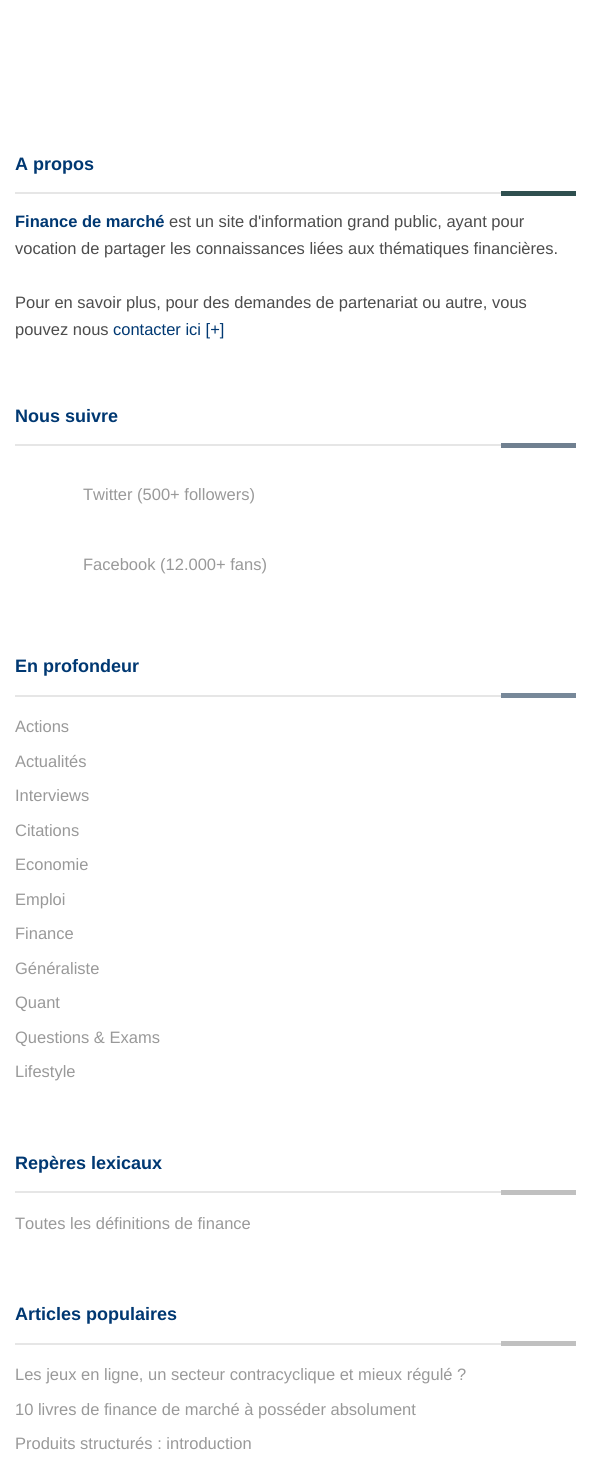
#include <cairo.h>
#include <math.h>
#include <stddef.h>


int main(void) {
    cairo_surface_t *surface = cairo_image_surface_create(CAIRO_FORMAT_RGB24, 590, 1461);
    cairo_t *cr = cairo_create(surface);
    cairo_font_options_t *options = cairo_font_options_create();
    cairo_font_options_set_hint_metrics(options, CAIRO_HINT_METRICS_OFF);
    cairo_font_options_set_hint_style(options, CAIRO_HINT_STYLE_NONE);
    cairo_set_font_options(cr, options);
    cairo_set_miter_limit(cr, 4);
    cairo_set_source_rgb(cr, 1, 1, 1);
    cairo_paint(cr);
    cairo_select_font_face(cr, "Liberation Sans", CAIRO_FONT_SLANT_NORMAL, CAIRO_FONT_WEIGHT_BOLD);
    cairo_set_font_size(cr, 18);
    cairo_set_source_rgb(cr, 0, 0.22, 0.447);
    cairo_move_to(cr, 15, 170);
    cairo_show_text(cr, "A propos");
    cairo_set_source_rgb(cr, 0.902, 0.902, 0.902);
    cairo_rectangle(cr, 15, 192, 486, 2);
    cairo_fill(cr);
    cairo_set_source_rgb(cr, 0.184, 0.31, 0.31);
    cairo_rectangle(cr, 501, 191, 75, 5);
    cairo_fill(cr);
    cairo_set_font_size(cr, 16.5);
    cairo_set_source_rgb(cr, 0, 0.22, 0.447);
    cairo_move_to(cr, 15, 227);
    cairo_show_text(cr, "Finance de marché");
    cairo_select_font_face(cr, "Liberation Sans", CAIRO_FONT_SLANT_NORMAL, CAIRO_FONT_WEIGHT_NORMAL);
    cairo_set_source_rgb(cr, 0.298, 0.298, 0.298);
    cairo_move_to(cr, 169, 227);
    cairo_show_text(cr, "est un site d'information grand public, ayant pour");
    cairo_move_to(cr, 15, 254);
    cairo_show_text(cr, "vocation de partager les connaissances liées aux thématiques financières.");
    cairo_move_to(cr, 15, 308);
    cairo_show_text(cr, "Pour en savoir plus, pour des demandes de partenariat ou autre, vous");
    cairo_move_to(cr, 15, 335);
    cairo_show_text(cr, "pouvez nous");
    cairo_set_source_rgb(cr, 0, 0.22, 0.447);
    cairo_move_to(cr, 113, 335);
    cairo_show_text(cr, "contacter ici [+]");
    cairo_select_font_face(cr, "Liberation Sans", CAIRO_FONT_SLANT_NORMAL, CAIRO_FONT_WEIGHT_BOLD);
    cairo_set_font_size(cr, 18);
    cairo_move_to(cr, 15, 422);
    cairo_show_text(cr, "Nous suivre");
    cairo_set_source_rgb(cr, 0.902, 0.902, 0.902);
    cairo_rectangle(cr, 15, 444, 486, 2);
    cairo_fill(cr);
    cairo_set_source_rgb(cr, 0.439, 0.502, 0.565);
    cairo_rectangle(cr, 501, 443, 75, 5);
    cairo_fill(cr);
    cairo_select_font_face(cr, "Liberation Sans", CAIRO_FONT_SLANT_NORMAL, CAIRO_FONT_WEIGHT_NORMAL);
    cairo_set_font_size(cr, 16.5);
    cairo_set_source_rgb(cr, 0.6, 0.6, 0.6);
    cairo_move_to(cr, 83, 500);
    cairo_show_text(cr, "Twitter (500+ followers)");
    cairo_move_to(cr, 83, 570);
    cairo_show_text(cr, "Facebook (12.000+ fans)");
    cairo_select_font_face(cr, "Liberation Sans", CAIRO_FONT_SLANT_NORMAL, CAIRO_FONT_WEIGHT_BOLD);
    cairo_set_font_size(cr, 18);
    cairo_set_source_rgb(cr, 0, 0.22, 0.447);
    cairo_move_to(cr, 15, 672);
    cairo_show_text(cr, "En profondeur");
    cairo_set_source_rgb(cr, 0.902, 0.902, 0.902);
    cairo_rectangle(cr, 15, 695, 486, 2);
    cairo_fill(cr);
    cairo_set_source_rgb(cr, 0.467, 0.533, 0.6);
    cairo_rectangle(cr, 501, 693, 75, 5);
    cairo_fill(cr);
    cairo_select_font_face(cr, "Liberation Sans", CAIRO_FONT_SLANT_NORMAL, CAIRO_FONT_WEIGHT_NORMAL);
    cairo_set_font_size(cr, 16.5);
    cairo_set_source_rgb(cr, 0.6, 0.6, 0.6);
    cairo_move_to(cr, 15, 732);
    cairo_show_text(cr, "Actions");
    cairo_move_to(cr, 15, 767);
    cairo_show_text(cr, "Actualités");
    cairo_move_to(cr, 15, 801);
    cairo_show_text(cr, "Interviews");
    cairo_move_to(cr, 15, 836);
    cairo_show_text(cr, "Citations");
    cairo_move_to(cr, 15, 870);
    cairo_show_text(cr, "Economie");
    cairo_move_to(cr, 15, 905);
    cairo_show_text(cr, "Emploi");
    cairo_move_to(cr, 15, 939);
    cairo_show_text(cr, "Finance");
    cairo_move_to(cr, 15, 974);
    cairo_show_text(cr, "Généraliste");
    cairo_move_to(cr, 15, 1008);
    cairo_show_text(cr, "Quant");
    cairo_move_to(cr, 15, 1043);
    cairo_show_text(cr, "Questions & Exams");
    cairo_move_to(cr, 15, 1077);
    cairo_show_text(cr, "Lifestyle");
    cairo_select_font_face(cr, "Liberation Sans", CAIRO_FONT_SLANT_NORMAL, CAIRO_FONT_WEIGHT_BOLD);
    cairo_set_font_size(cr, 18);
    cairo_set_source_rgb(cr, 0, 0.22, 0.447);
    cairo_move_to(cr, 15, 1169);
    cairo_show_text(cr, "Repères lexicaux");
    cairo_set_source_rgb(cr, 0.902, 0.902, 0.902);
    cairo_rectangle(cr, 15, 1191, 486, 2);
    cairo_fill(cr);
    cairo_set_source_rgb(cr, 0.753, 0.753, 0.753);
    cairo_rectangle(cr, 501, 1190, 75, 5);
    cairo_fill(cr);
    cairo_select_font_face(cr, "Liberation Sans", CAIRO_FONT_SLANT_NORMAL, CAIRO_FONT_WEIGHT_NORMAL);
    cairo_set_font_size(cr, 16.5);
    cairo_set_source_rgb(cr, 0.6, 0.6, 0.6);
    cairo_move_to(cr, 15, 1229);
    cairo_show_text(cr, "Toutes les définitions de finance");
    cairo_select_font_face(cr, "Liberation Sans", CAIRO_FONT_SLANT_NORMAL, CAIRO_FONT_WEIGHT_BOLD);
    cairo_set_font_size(cr, 18);
    cairo_set_source_rgb(cr, 0, 0.22, 0.447);
    cairo_move_to(cr, 15, 1320);
    cairo_show_text(cr, "Articles populaires");
    cairo_set_source_rgb(cr, 0.902, 0.902, 0.902);
    cairo_rectangle(cr, 15, 1343, 486, 2);
    cairo_fill(cr);
    cairo_set_source_rgb(cr, 0.753, 0.753, 0.753);
    cairo_rectangle(cr, 501, 1341, 75, 5);
    cairo_fill(cr);
    cairo_select_font_face(cr, "Liberation Sans", CAIRO_FONT_SLANT_NORMAL, CAIRO_FONT_WEIGHT_NORMAL);
    cairo_set_font_size(cr, 16.5);
    cairo_set_source_rgb(cr, 0.6, 0.6, 0.6);
    cairo_move_to(cr, 15, 1380);
    cairo_show_text(cr, "Les jeux en ligne, un secteur contracyclique et mieux régulé ?");
    cairo_move_to(cr, 15, 1415);
    cairo_show_text(cr, "10 livres de finance de marché à posséder absolument");
    cairo_move_to(cr, 15, 1449);
    cairo_show_text(cr, "Produits structurés : introduction");
    cairo_surface_write_to_png(surface, "page.png");
    cairo_font_options_destroy(options);
    cairo_destroy(cr);
    cairo_surface_destroy(surface);
    return 0;
}
